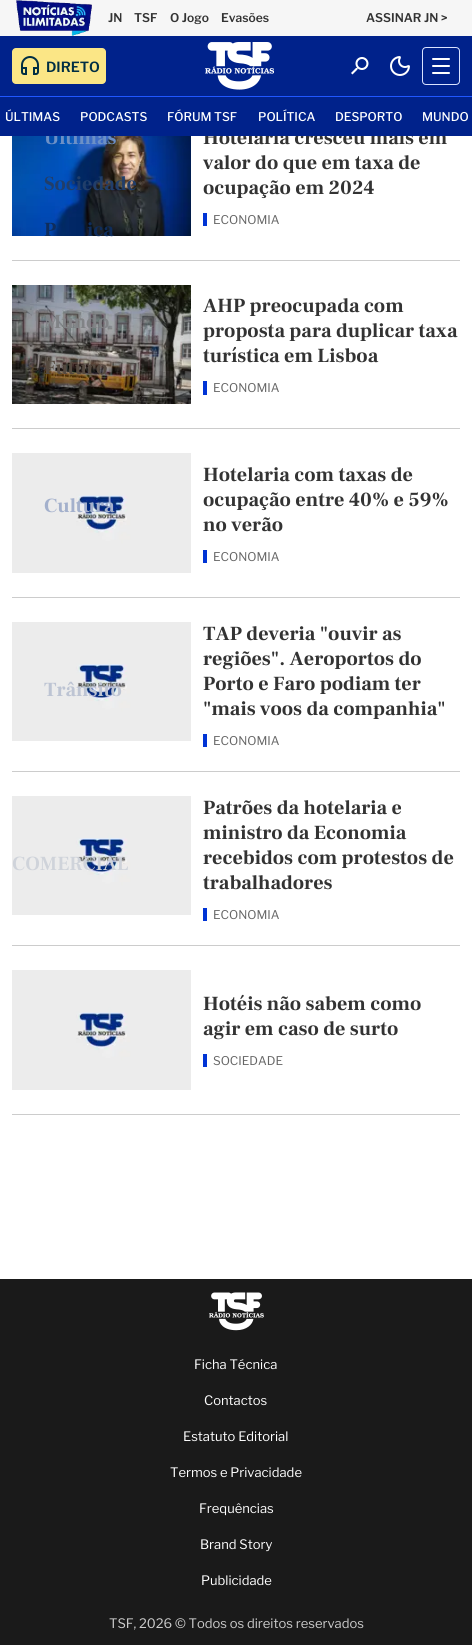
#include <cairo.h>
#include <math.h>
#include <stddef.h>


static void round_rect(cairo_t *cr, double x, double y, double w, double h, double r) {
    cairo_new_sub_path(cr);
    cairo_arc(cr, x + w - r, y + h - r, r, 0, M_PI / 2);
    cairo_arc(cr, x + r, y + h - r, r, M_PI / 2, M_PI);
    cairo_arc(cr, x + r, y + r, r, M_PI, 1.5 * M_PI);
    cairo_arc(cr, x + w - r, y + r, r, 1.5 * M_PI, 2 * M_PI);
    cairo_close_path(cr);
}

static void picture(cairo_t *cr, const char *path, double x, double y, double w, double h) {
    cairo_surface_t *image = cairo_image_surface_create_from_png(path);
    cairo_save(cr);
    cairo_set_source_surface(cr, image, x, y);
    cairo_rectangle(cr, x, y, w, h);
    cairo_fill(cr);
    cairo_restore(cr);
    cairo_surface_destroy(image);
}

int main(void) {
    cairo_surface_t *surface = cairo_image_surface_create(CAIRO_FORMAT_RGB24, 472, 1645);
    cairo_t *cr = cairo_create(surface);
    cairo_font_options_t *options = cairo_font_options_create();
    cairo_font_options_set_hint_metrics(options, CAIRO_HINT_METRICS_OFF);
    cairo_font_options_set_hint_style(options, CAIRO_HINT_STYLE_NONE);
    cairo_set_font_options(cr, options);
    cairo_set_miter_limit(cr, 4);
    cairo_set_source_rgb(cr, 1, 1, 1);
    cairo_paint(cr);
    cairo_set_source_rgb(cr, 0.961, 0.961, 0.961);
    cairo_rectangle(cr, 0, 0, 472, 36);
    cairo_fill(cr);
    picture(cr, "img1.png", 16, 0, 76, 36);
    cairo_select_font_face(cr, "Libre Franklin SemiBold", CAIRO_FONT_SLANT_NORMAL, CAIRO_FONT_WEIGHT_NORMAL);
    cairo_set_font_size(cr, 12);
    cairo_set_source_rgb(cr, 0.2, 0.2, 0.2);
    cairo_move_to(cr, 108, 22);
    cairo_show_text(cr, "JN");
    cairo_move_to(cr, 134, 22);
    cairo_show_text(cr, "TSF");
    cairo_move_to(cr, 170, 22);
    cairo_show_text(cr, "O Jogo");
    cairo_move_to(cr, 221, 22);
    cairo_show_text(cr, "Evasões");
    cairo_move_to(cr, 366, 22);
    cairo_show_text(cr, "ASSINAR JN >");
    cairo_set_source_rgb(cr, 0, 0.133, 0.545);
    cairo_rectangle(cr, 0, 36, 472, 60);
    cairo_fill(cr);
    picture(cr, "img2.png", 205, 42, 69, 48);
    picture(cr, "img3.png", 351, 57, 18, 18);
    picture(cr, "img4.png", 390, 56, 20, 20);
    round_rect(cr, 422.5, 47.5, 37, 37, 3.5);
    cairo_set_source_rgb(cr, 0.855, 0.89, 1);
    cairo_set_line_width(cr, 1);
    cairo_stroke(cr);
    picture(cr, "img5.png", 432, 58, 18, 16);
    cairo_set_source_rgb(cr, 0.984, 0.902, 0.525);
    round_rect(cr, 12, 48, 94, 36, 4);
    cairo_fill(cr);
    picture(cr, "img6.png", 21, 56, 18, 19);
    cairo_set_font_size(cr, 14);
    cairo_set_source_rgb(cr, 0, 0.18, 0.267);
    cairo_move_to(cr, 46, 72);
    cairo_show_text(cr, "DIRETO");
    picture(cr, "img7.png", 12, 136, 179, 100);
    cairo_select_font_face(cr, "Frank Ruhl Libre", CAIRO_FONT_SLANT_NORMAL, CAIRO_FONT_WEIGHT_BOLD);
    cairo_set_font_size(cr, 20);
    cairo_set_source_rgb(cr, 0.424, 0.565, 0.776);
    cairo_move_to(cr, 44, 144);
    cairo_show_text(cr, "Últimas");
    cairo_set_source_rgb(cr, 0.2, 0.2, 0.2);
    cairo_move_to(cr, 203, 144);
    cairo_show_text(cr, "Hotelaria cresceu mais em");
    cairo_set_source_rgb(cr, 0, 0.133, 0.545);
    cairo_rectangle(cr, 0, 97, 472, 39);
    cairo_fill(cr);
    cairo_set_source_rgb(cr, 0.125, 0.341, 1);
    cairo_rectangle(cr, 0, 96, 472, 1);
    cairo_fill(cr);
    cairo_select_font_face(cr, "Libre Franklin Medium", CAIRO_FONT_SLANT_NORMAL, CAIRO_FONT_WEIGHT_NORMAL);
    cairo_set_font_size(cr, 12);
    cairo_set_source_rgb(cr, 1, 1, 1);
    cairo_move_to(cr, 5, 121);
    cairo_show_text(cr, "ÚLTIMAS");
    cairo_move_to(cr, 80, 121);
    cairo_show_text(cr, "PODCASTS");
    cairo_move_to(cr, 167, 121);
    cairo_show_text(cr, "FÓRUM TSF");
    cairo_move_to(cr, 258, 121);
    cairo_show_text(cr, "POLÍTICA");
    cairo_move_to(cr, 335, 121);
    cairo_show_text(cr, "DESPORTO");
    cairo_move_to(cr, 422, 121);
    cairo_show_text(cr, "MUNDO");
    cairo_select_font_face(cr, "Frank Ruhl Libre", CAIRO_FONT_SLANT_NORMAL, CAIRO_FONT_WEIGHT_BOLD);
    cairo_set_font_size(cr, 20);
    cairo_set_source_rgb(cr, 0.129, 0.243, 0.416);
    cairo_move_to(cr, 44, 190);
    cairo_show_text(cr, "Sociedade");
    cairo_set_source_rgb(cr, 0.059, 0.176, 0.361);
    cairo_move_to(cr, 44, 236);
    cairo_show_text(cr, "P");
    cairo_move_to(cr, 87, 236);
    cairo_show_text(cr, "ica");
    picture(cr, "img8.png", 12, 285, 179, 119);
    cairo_set_source_rgb(cr, 0.506, 0.514, 0.525);
    cairo_move_to(cr, 44, 328);
    cairo_show_text(cr, "Mundo");
    cairo_set_source_rgb(cr, 0.333, 0.29, 0.251);
    cairo_move_to(cr, 44, 374);
    cairo_show_text(cr, "Futuro");
    picture(cr, "img9.png", 12, 453, 179, 120);
    cairo_set_source_rgb(cr, 0.639, 0.69, 0.8);
    cairo_move_to(cr, 44, 512);
    cairo_show_text(cr, "Cultura");
    picture(cr, "img10.png", 12, 622, 179, 119);
    cairo_set_source_rgb(cr, 0.741, 0.769, 0.827);
    cairo_move_to(cr, 44, 696);
    cairo_show_text(cr, "Trânsito");
    picture(cr, "img10.png", 12, 796, 179, 119);
    cairo_select_font_face(cr, "Frank Ruhl Libre SemiBold", CAIRO_FONT_SLANT_NORMAL, CAIRO_FONT_WEIGHT_NORMAL);
    cairo_set_source_rgb(cr, 0.812, 0.827, 0.855);
    cairo_move_to(cr, 12, 870);
    cairo_show_text(cr, "COMERCIAL");
    cairo_set_source_rgb(cr, 0.8, 0.8, 0.8);
    cairo_rectangle(cr, 12, 260, 448, 1);
    cairo_fill(cr);
    cairo_select_font_face(cr, "Frank Ruhl Libre", CAIRO_FONT_SLANT_NORMAL, CAIRO_FONT_WEIGHT_BOLD);
    cairo_set_source_rgb(cr, 0.2, 0.2, 0.2);
    cairo_move_to(cr, 203, 169);
    cairo_show_text(cr, "valor do que em taxa de");
    cairo_move_to(cr, 203, 194);
    cairo_show_text(cr, "ocupação em 2024");
    cairo_set_source_rgb(cr, 0, 0.204, 0.835);
    cairo_rectangle(cr, 203, 213, 4, 13);
    cairo_fill(cr);
    cairo_select_font_face(cr, "Libre Franklin", CAIRO_FONT_SLANT_NORMAL, CAIRO_FONT_WEIGHT_NORMAL);
    cairo_set_font_size(cr, 12);
    cairo_set_source_rgb(cr, 0.4, 0.4, 0.4);
    cairo_move_to(cr, 213, 224);
    cairo_show_text(cr, "ECONOMIA");
    cairo_set_source_rgb(cr, 0.8, 0.8, 0.8);
    cairo_rectangle(cr, 12, 428, 448, 1);
    cairo_fill(cr);
    cairo_select_font_face(cr, "Frank Ruhl Libre", CAIRO_FONT_SLANT_NORMAL, CAIRO_FONT_WEIGHT_BOLD);
    cairo_set_font_size(cr, 20);
    cairo_set_source_rgb(cr, 0.2, 0.2, 0.2);
    cairo_move_to(cr, 203, 312);
    cairo_show_text(cr, "AHP preocupada com");
    cairo_move_to(cr, 203, 337);
    cairo_show_text(cr, "proposta para duplicar taxa");
    cairo_move_to(cr, 203, 362);
    cairo_show_text(cr, "turística em Lisboa");
    cairo_set_source_rgb(cr, 0, 0.204, 0.835);
    cairo_rectangle(cr, 203, 381, 4, 14);
    cairo_fill(cr);
    cairo_select_font_face(cr, "Libre Franklin", CAIRO_FONT_SLANT_NORMAL, CAIRO_FONT_WEIGHT_NORMAL);
    cairo_set_font_size(cr, 12);
    cairo_set_source_rgb(cr, 0.4, 0.4, 0.4);
    cairo_move_to(cr, 213, 392);
    cairo_show_text(cr, "ECONOMIA");
    cairo_set_source_rgb(cr, 0.8, 0.8, 0.8);
    cairo_rectangle(cr, 12, 597, 448, 1);
    cairo_fill(cr);
    cairo_select_font_face(cr, "Frank Ruhl Libre", CAIRO_FONT_SLANT_NORMAL, CAIRO_FONT_WEIGHT_BOLD);
    cairo_set_font_size(cr, 20);
    cairo_set_source_rgb(cr, 0.2, 0.2, 0.2);
    cairo_move_to(cr, 203, 481);
    cairo_show_text(cr, "Hotelaria com taxas de");
    cairo_move_to(cr, 203, 506);
    cairo_show_text(cr, "ocupação entre 40% e 59%");
    cairo_move_to(cr, 203, 531);
    cairo_show_text(cr, "no verão");
    cairo_set_source_rgb(cr, 0, 0.204, 0.835);
    cairo_rectangle(cr, 203, 550, 4, 13);
    cairo_fill(cr);
    cairo_select_font_face(cr, "Libre Franklin", CAIRO_FONT_SLANT_NORMAL, CAIRO_FONT_WEIGHT_NORMAL);
    cairo_set_font_size(cr, 12);
    cairo_set_source_rgb(cr, 0.4, 0.4, 0.4);
    cairo_move_to(cr, 213, 561);
    cairo_show_text(cr, "ECONOMIA");
    cairo_set_source_rgb(cr, 0.8, 0.8, 0.8);
    cairo_rectangle(cr, 12, 771, 448, 1);
    cairo_fill(cr);
    cairo_select_font_face(cr, "Frank Ruhl Libre", CAIRO_FONT_SLANT_NORMAL, CAIRO_FONT_WEIGHT_BOLD);
    cairo_set_font_size(cr, 20);
    cairo_set_source_rgb(cr, 0.2, 0.2, 0.2);
    cairo_move_to(cr, 203, 640);
    cairo_show_text(cr, "TAP deveria \"ouvir as");
    cairo_move_to(cr, 203, 665);
    cairo_show_text(cr, "regiões\". Aeroportos do");
    cairo_move_to(cr, 203, 690);
    cairo_show_text(cr, "Porto e Faro podiam ter");
    cairo_move_to(cr, 203, 715);
    cairo_show_text(cr, "\"mais voos da companhia\"");
    cairo_set_source_rgb(cr, 0, 0.204, 0.835);
    cairo_rectangle(cr, 203, 734, 4, 13);
    cairo_fill(cr);
    cairo_select_font_face(cr, "Libre Franklin", CAIRO_FONT_SLANT_NORMAL, CAIRO_FONT_WEIGHT_NORMAL);
    cairo_set_font_size(cr, 12);
    cairo_set_source_rgb(cr, 0.4, 0.4, 0.4);
    cairo_move_to(cr, 213, 745);
    cairo_show_text(cr, "ECONOMIA");
    cairo_set_source_rgb(cr, 0.8, 0.8, 0.8);
    cairo_rectangle(cr, 12, 945, 448, 1);
    cairo_fill(cr);
    cairo_select_font_face(cr, "Frank Ruhl Libre", CAIRO_FONT_SLANT_NORMAL, CAIRO_FONT_WEIGHT_BOLD);
    cairo_set_font_size(cr, 20);
    cairo_set_source_rgb(cr, 0.2, 0.2, 0.2);
    cairo_move_to(cr, 203, 814);
    cairo_show_text(cr, "Patrões da hotelaria e");
    cairo_move_to(cr, 203, 839);
    cairo_show_text(cr, "ministro da Economia");
    cairo_move_to(cr, 203, 864);
    cairo_show_text(cr, "recebidos com protestos de");
    cairo_move_to(cr, 203, 889);
    cairo_show_text(cr, "trabalhadores");
    cairo_set_source_rgb(cr, 0, 0.204, 0.835);
    cairo_rectangle(cr, 203, 908, 4, 13);
    cairo_fill(cr);
    cairo_select_font_face(cr, "Libre Franklin", CAIRO_FONT_SLANT_NORMAL, CAIRO_FONT_WEIGHT_NORMAL);
    cairo_set_font_size(cr, 12);
    cairo_set_source_rgb(cr, 0.4, 0.4, 0.4);
    cairo_move_to(cr, 213, 919);
    cairo_show_text(cr, "ECONOMIA");
    cairo_set_source_rgb(cr, 0.8, 0.8, 0.8);
    cairo_rectangle(cr, 12, 1114, 448, 1);
    cairo_fill(cr);
    picture(cr, "img9.png", 12, 970, 179, 120);
    cairo_select_font_face(cr, "Frank Ruhl Libre", CAIRO_FONT_SLANT_NORMAL, CAIRO_FONT_WEIGHT_BOLD);
    cairo_set_font_size(cr, 20);
    cairo_set_source_rgb(cr, 0.2, 0.2, 0.2);
    cairo_move_to(cr, 203, 1010);
    cairo_show_text(cr, "Hotéis não sabem como");
    cairo_move_to(cr, 203, 1035);
    cairo_show_text(cr, "agir em caso de surto");
    cairo_set_source_rgb(cr, 0, 0.204, 0.835);
    cairo_rectangle(cr, 203, 1054, 4, 13);
    cairo_fill(cr);
    cairo_select_font_face(cr, "Libre Franklin", CAIRO_FONT_SLANT_NORMAL, CAIRO_FONT_WEIGHT_NORMAL);
    cairo_set_font_size(cr, 12);
    cairo_set_source_rgb(cr, 0.4, 0.4, 0.4);
    cairo_move_to(cr, 213, 1065);
    cairo_show_text(cr, "SOCIEDADE");
    cairo_set_source_rgb(cr, 0.102, 0.102, 0.102);
    cairo_rectangle(cr, 0, 1279, 472, 366);
    cairo_fill(cr);
    picture(cr, "img11.png", 209, 1292, 55, 39);
    cairo_set_font_size(cr, 13);
    cairo_set_source_rgb(cr, 1, 1, 1);
    cairo_move_to(cr, 194, 1369);
    cairo_show_text(cr, "Ficha Técnica");
    cairo_move_to(cr, 204, 1405);
    cairo_show_text(cr, "Contactos");
    cairo_move_to(cr, 183, 1441);
    cairo_show_text(cr, "Estatuto Editorial");
    cairo_move_to(cr, 170, 1477);
    cairo_show_text(cr, "Termos e Privacidade");
    cairo_move_to(cr, 199, 1513);
    cairo_show_text(cr, "Frequências");
    cairo_move_to(cr, 200, 1549);
    cairo_show_text(cr, "Brand Story");
    cairo_move_to(cr, 201, 1585);
    cairo_show_text(cr, "Publicidade");
    cairo_set_source_rgb(cr, 0.8, 0.8, 0.8);
    cairo_move_to(cr, 109, 1628);
    cairo_show_text(cr, "TSF, 2026 © Todos os direitos reservados");
    cairo_surface_write_to_png(surface, "page.png");
    cairo_font_options_destroy(options);
    cairo_destroy(cr);
    cairo_surface_destroy(surface);
    return 0;
}
